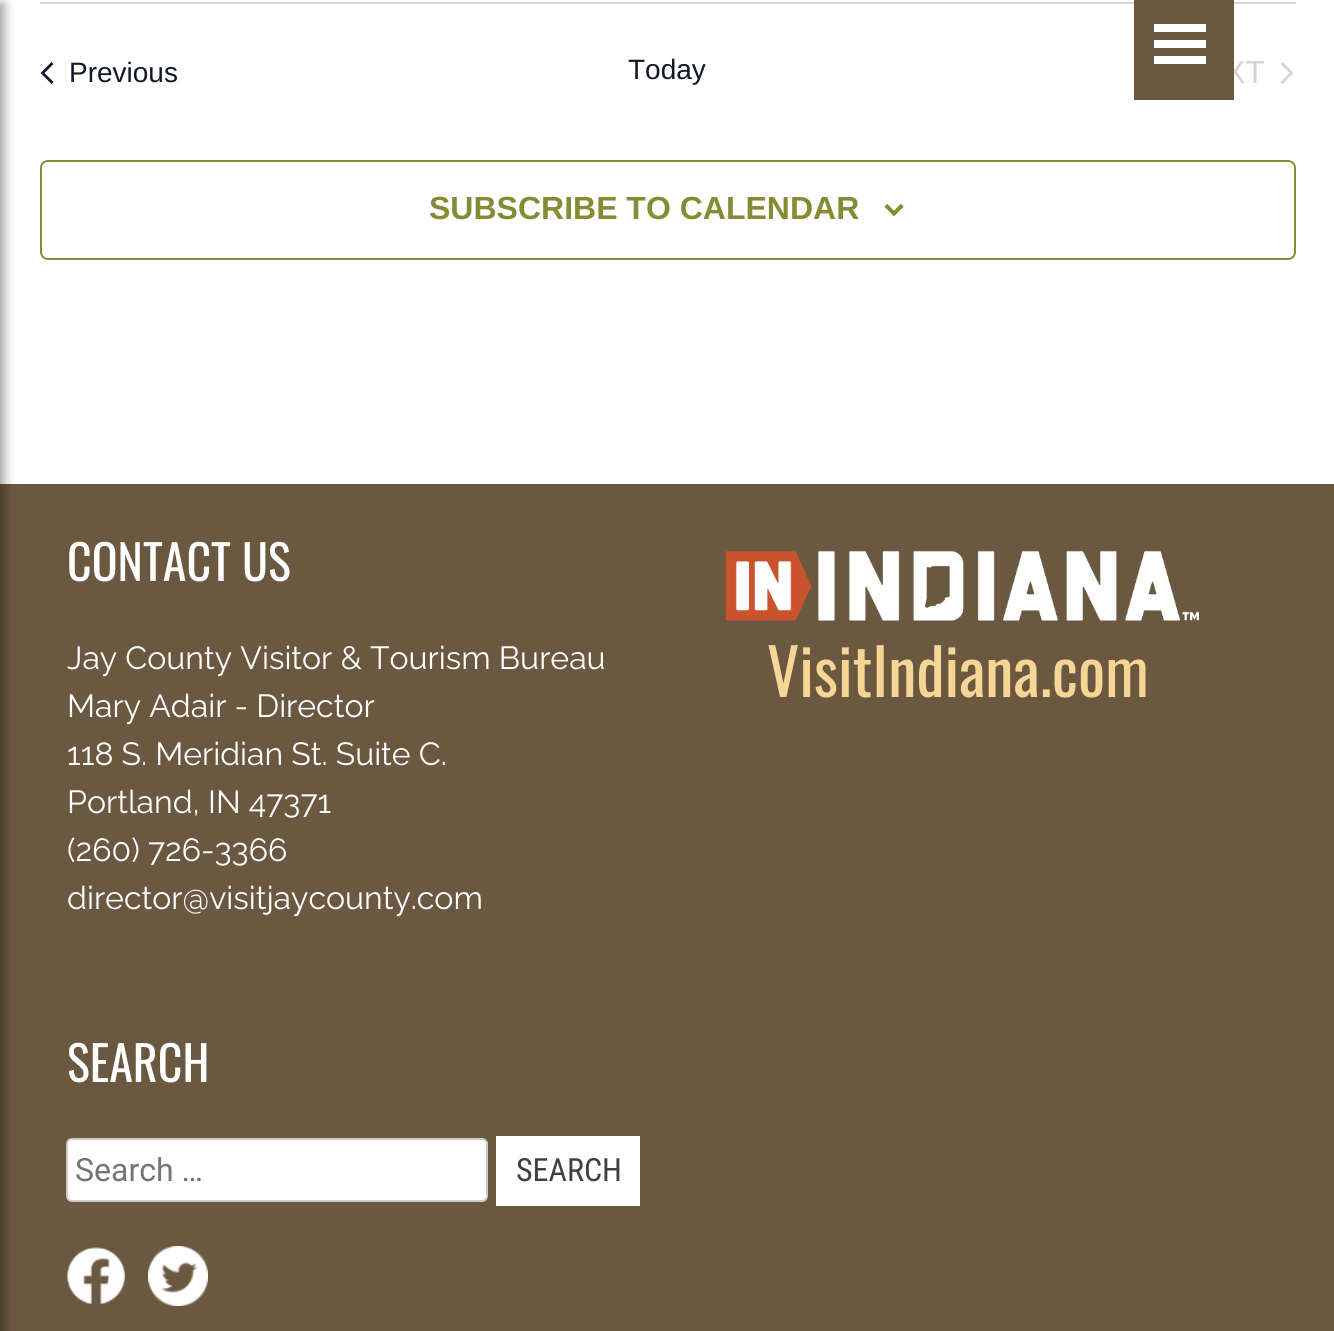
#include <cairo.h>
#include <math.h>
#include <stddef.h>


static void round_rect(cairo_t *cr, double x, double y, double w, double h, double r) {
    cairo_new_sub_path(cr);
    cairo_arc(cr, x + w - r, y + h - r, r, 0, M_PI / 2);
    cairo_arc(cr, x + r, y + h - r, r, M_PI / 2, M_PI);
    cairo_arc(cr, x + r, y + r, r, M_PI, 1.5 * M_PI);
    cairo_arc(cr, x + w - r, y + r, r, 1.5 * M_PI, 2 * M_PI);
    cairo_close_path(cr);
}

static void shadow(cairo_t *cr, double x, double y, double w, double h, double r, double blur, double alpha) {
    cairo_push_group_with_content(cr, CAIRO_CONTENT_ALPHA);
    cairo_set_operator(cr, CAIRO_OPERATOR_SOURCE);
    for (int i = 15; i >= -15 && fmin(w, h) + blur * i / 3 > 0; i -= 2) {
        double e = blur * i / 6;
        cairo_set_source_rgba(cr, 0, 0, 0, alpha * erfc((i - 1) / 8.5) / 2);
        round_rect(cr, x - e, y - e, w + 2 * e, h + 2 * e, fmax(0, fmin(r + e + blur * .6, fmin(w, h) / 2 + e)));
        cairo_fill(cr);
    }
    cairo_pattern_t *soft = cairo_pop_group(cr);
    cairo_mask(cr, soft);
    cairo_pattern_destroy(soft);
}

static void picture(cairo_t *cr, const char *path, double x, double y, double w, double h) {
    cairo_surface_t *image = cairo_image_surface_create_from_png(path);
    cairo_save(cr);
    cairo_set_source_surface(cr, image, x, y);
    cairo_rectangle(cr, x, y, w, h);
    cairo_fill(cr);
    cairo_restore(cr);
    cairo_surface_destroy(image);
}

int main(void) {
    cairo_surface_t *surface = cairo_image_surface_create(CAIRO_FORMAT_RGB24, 1334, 1331);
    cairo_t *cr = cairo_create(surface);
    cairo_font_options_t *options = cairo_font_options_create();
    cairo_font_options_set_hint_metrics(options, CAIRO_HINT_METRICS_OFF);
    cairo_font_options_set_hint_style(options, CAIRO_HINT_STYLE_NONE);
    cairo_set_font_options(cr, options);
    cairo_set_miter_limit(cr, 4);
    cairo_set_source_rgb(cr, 1, 1, 1);
    cairo_paint(cr);
    cairo_set_source_rgb(cr, 0.42, 0.345, 0.255);
    cairo_rectangle(cr, 0, 484, 1334, 847);
    cairo_fill(cr);
    cairo_set_source_rgb(cr, 0, 0, 0);
    shadow(cr, -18, 4, 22, 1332, 0, 6, 0.4);
    cairo_set_source_rgb(cr, 0.835, 0.835, 0.835);
    cairo_rectangle(cr, 40, 2, 1256, 2);
    cairo_fill(cr);
    cairo_select_font_face(cr, "Liberation Sans", CAIRO_FONT_SLANT_NORMAL, CAIRO_FONT_WEIGHT_NORMAL);
    cairo_set_font_size(cr, 32);
    cairo_move_to(cr, 1224, 83);
    cairo_show_text(cr, "XT");
    cairo_set_source_rgb(cr, 0.42, 0.345, 0.255);
    cairo_rectangle(cr, 1134, 0, 100, 100);
    cairo_fill(cr);
    cairo_set_source_rgb(cr, 1, 1, 1);
    cairo_rectangle(cr, 1154, 40, 52, 8);
    cairo_fill(cr);
    cairo_rectangle(cr, 1154, 24, 52, 8);
    cairo_fill(cr);
    cairo_rectangle(cr, 1154, 56, 52, 8);
    cairo_fill(cr);
    cairo_set_source_rgb(cr, 0.078, 0.094, 0.153);
    cairo_new_path(cr);
    cairo_move_to(cr, 53.5, 82);
    cairo_line_to(cr, 51.5, 84);
    cairo_line_to(cr, 40.5, 73);
    cairo_line_to(cr, 51.5, 62);
    cairo_line_to(cr, 53.5, 64);
    cairo_line_to(cr, 44.5, 73);
    cairo_close_path(cr);
    cairo_fill(cr);
    cairo_set_font_size(cr, 28);
    cairo_move_to(cr, 69, 82);
    cairo_show_text(cr, "Previous");
    cairo_move_to(cr, 628, 79);
    cairo_show_text(cr, "Today");
    cairo_set_source_rgb(cr, 0.835, 0.835, 0.835);
    cairo_new_path(cr);
    cairo_move_to(cr, 1280.5, 64);
    cairo_line_to(cr, 1282.5, 62);
    cairo_line_to(cr, 1293.5, 73);
    cairo_line_to(cr, 1282.5, 84);
    cairo_line_to(cr, 1280.5, 82);
    cairo_line_to(cr, 1289.5, 73);
    cairo_close_path(cr);
    cairo_fill(cr);
    round_rect(cr, 41, 161, 1254, 98, 7);
    cairo_set_source_rgb(cr, 0.525, 0.549, 0.204);
    cairo_stroke(cr);
    cairo_select_font_face(cr, "Liberation Sans", CAIRO_FONT_SLANT_NORMAL, CAIRO_FONT_WEIGHT_BOLD);
    cairo_set_font_size(cr, 32);
    cairo_move_to(cr, 429, 219);
    cairo_show_text(cr, "SUBSCRIBE TO CALENDAR");
    picture(cr, "img1.png", 884, 204, 20, 12);
    cairo_select_font_face(cr, "Oswald", CAIRO_FONT_SLANT_NORMAL, CAIRO_FONT_WEIGHT_NORMAL);
    cairo_set_font_size(cr, 48);
    cairo_set_source_rgb(cr, 1, 1, 1);
    cairo_move_to(cr, 67, 581);
    cairo_show_text(cr, "CONTACT US");
    cairo_select_font_face(cr, "Raleway Thin", CAIRO_FONT_SLANT_NORMAL, CAIRO_FONT_WEIGHT_NORMAL);
    cairo_set_font_size(cr, 32);
    cairo_move_to(cr, 67, 669);
    cairo_show_text(cr, "Jay County Visitor & Tourism Bureau");
    cairo_move_to(cr, 67, 717);
    cairo_show_text(cr, "Mary Adair - Director");
    cairo_move_to(cr, 67, 765);
    cairo_show_text(cr, "118 S. Meridian St. Suite C.");
    cairo_move_to(cr, 67, 813);
    cairo_show_text(cr, "Portland, IN 47371");
    cairo_move_to(cr, 67, 861);
    cairo_show_text(cr, "(260) 726-3366");
    cairo_move_to(cr, 67, 909);
    cairo_show_text(cr, "director@visitjaycounty.com");
    picture(cr, "img2.png", 725, 550, 474, 71);
    cairo_select_font_face(cr, "Oswald", CAIRO_FONT_SLANT_NORMAL, CAIRO_FONT_WEIGHT_NORMAL);
    cairo_set_font_size(cr, 64);
    cairo_set_source_rgb(cr, 0.961, 0.835, 0.584);
    cairo_move_to(cr, 767, 697);
    cairo_show_text(cr, "VisitIndiana.com");
    cairo_set_font_size(cr, 48);
    cairo_set_source_rgb(cr, 1, 1, 1);
    cairo_move_to(cr, 67, 1082);
    cairo_show_text(cr, "SEARCH");
    round_rect(cr, 67, 1139, 420, 62, 5);
    cairo_fill_preserve(cr);
    cairo_set_source_rgb(cr, 0.8, 0.8, 0.8);
    cairo_stroke(cr);
    cairo_select_font_face(cr, "Roboto", CAIRO_FONT_SLANT_NORMAL, CAIRO_FONT_WEIGHT_NORMAL);
    cairo_set_font_size(cr, 32);
    cairo_set_source_rgb(cr, 0.459, 0.459, 0.459);
    cairo_move_to(cr, 75, 1181);
    cairo_show_text(cr, "Search …");
    cairo_set_source_rgb(cr, 1, 1, 1);
    cairo_rectangle(cr, 496, 1136, 144, 70);
    cairo_fill(cr);
    cairo_select_font_face(cr, "Roboto Condensed", CAIRO_FONT_SLANT_NORMAL, CAIRO_FONT_WEIGHT_NORMAL);
    cairo_set_source_rgb(cr, 0.251, 0.251, 0.251);
    cairo_move_to(cr, 516, 1181);
    cairo_show_text(cr, "SEARCH");
    picture(cr, "img3.png", 66, 1247, 60, 58);
    picture(cr, "img4.png", 148, 1246, 60, 60);
    cairo_surface_write_to_png(surface, "page.png");
    cairo_font_options_destroy(options);
    cairo_destroy(cr);
    cairo_surface_destroy(surface);
    return 0;
}
